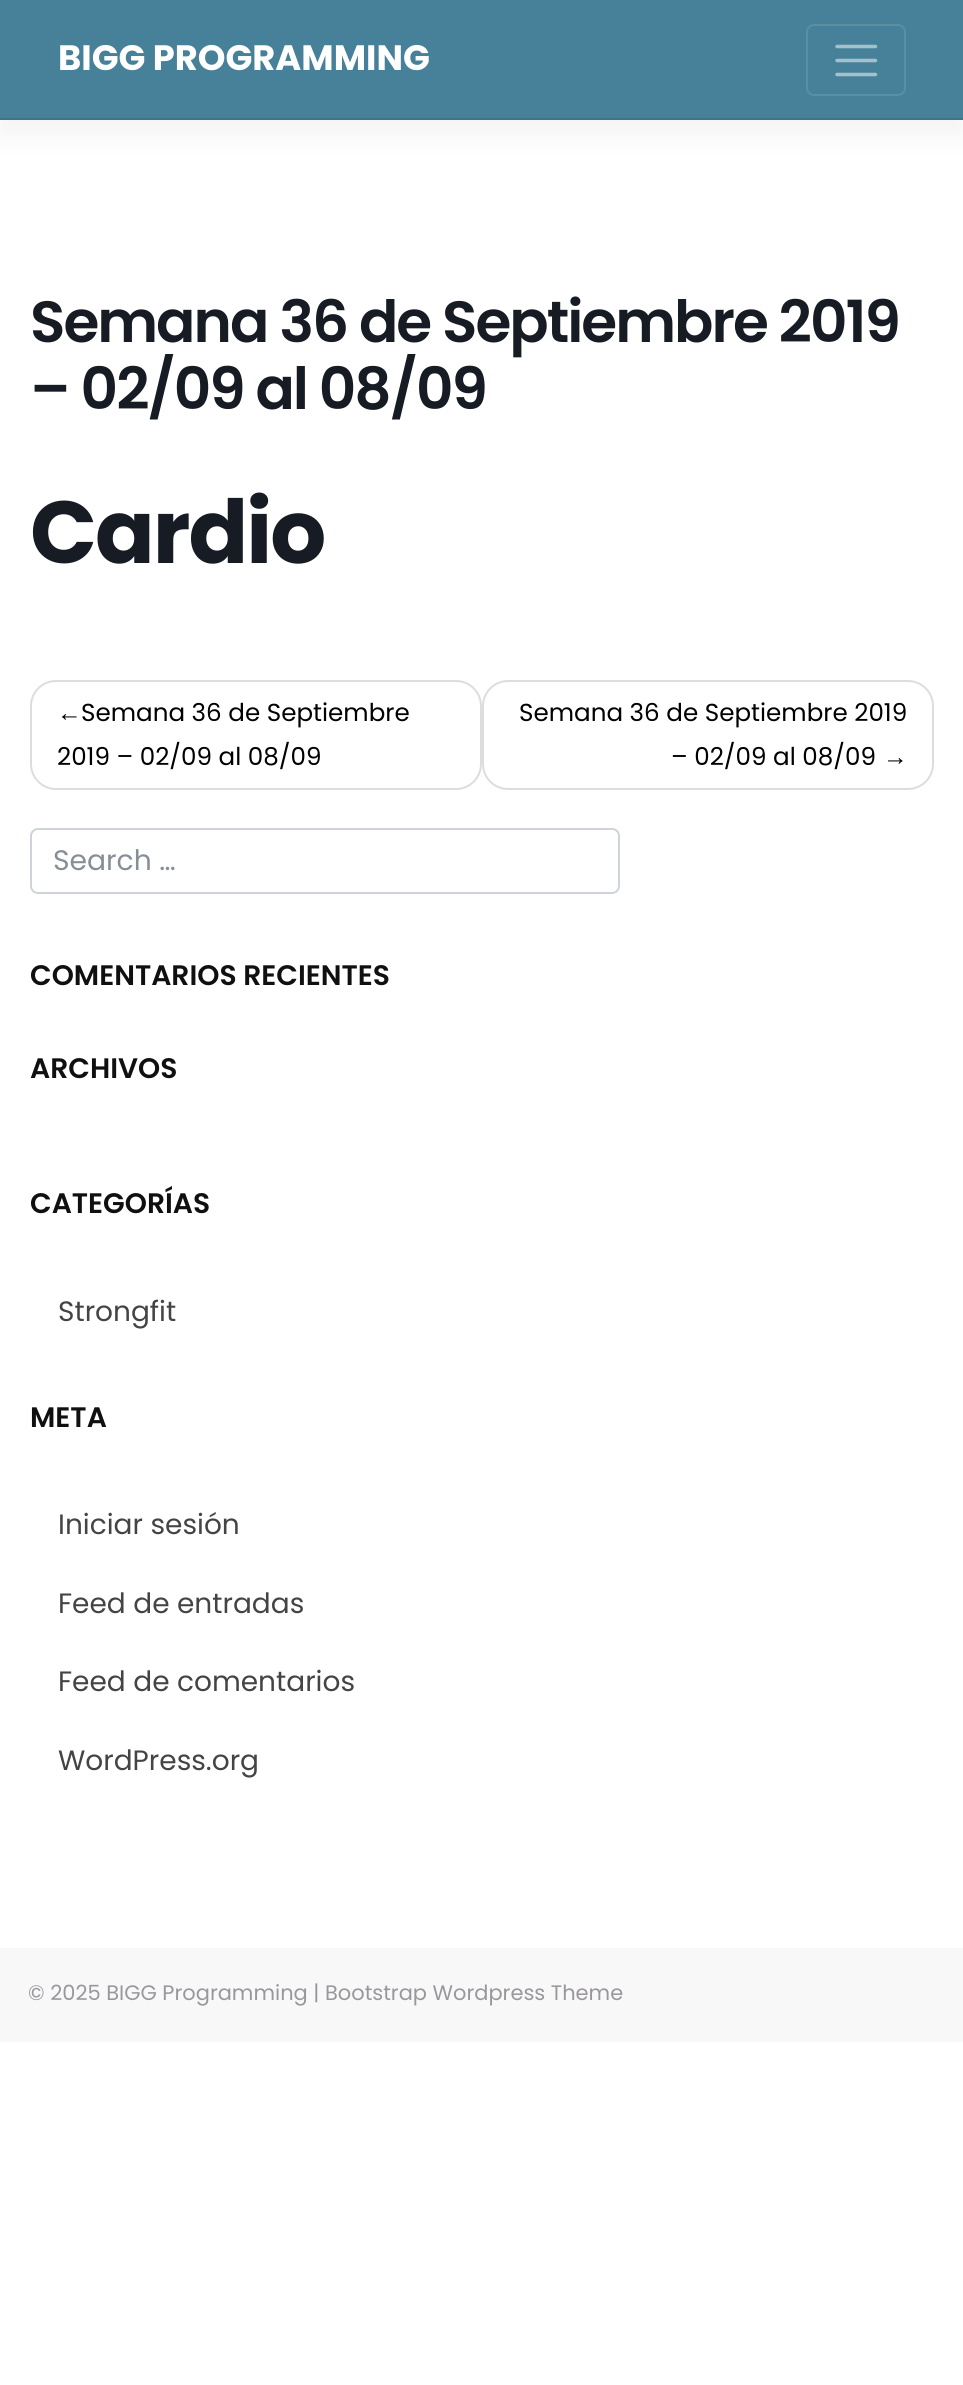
#include <cairo.h>
#include <math.h>
#include <stddef.h>


static void spaced_text(cairo_t *cr, double x, double y, const char *s, double letter, double word) {
    cairo_move_to(cr, x, y);
    while (*s) {
        char ch[5] = {0};
        int n = 0;
        do ch[n++] = *s++; while ((*s & 0xC0) == 0x80);
        cairo_show_text(cr, ch);
        cairo_rel_move_to(cr, letter + word * (*ch == ' '), 0);
    }
}

static void round_rect(cairo_t *cr, double x, double y, double w, double h, double r) {
    cairo_new_sub_path(cr);
    cairo_arc(cr, x + w - r, y + h - r, r, 0, M_PI / 2);
    cairo_arc(cr, x + r, y + h - r, r, M_PI / 2, M_PI);
    cairo_arc(cr, x + r, y + r, r, M_PI, 1.5 * M_PI);
    cairo_arc(cr, x + w - r, y + r, r, 1.5 * M_PI, 2 * M_PI);
    cairo_close_path(cr);
}

static void shadow(cairo_t *cr, double x, double y, double w, double h, double r, double blur, double alpha) {
    cairo_push_group_with_content(cr, CAIRO_CONTENT_ALPHA);
    cairo_set_operator(cr, CAIRO_OPERATOR_SOURCE);
    for (int i = 15; i >= -15 && fmin(w, h) + blur * i / 3 > 0; i -= 2) {
        double e = blur * i / 6;
        cairo_set_source_rgba(cr, 0, 0, 0, alpha * erfc((i - 1) / 8.5) / 2);
        round_rect(cr, x - e, y - e, w + 2 * e, h + 2 * e, fmax(0, fmin(r + e + blur * .6, fmin(w, h) / 2 + e)));
        cairo_fill(cr);
    }
    cairo_pattern_t *soft = cairo_pop_group(cr);
    cairo_mask(cr, soft);
    cairo_pattern_destroy(soft);
}

int main(void) {
    cairo_surface_t *surface = cairo_image_surface_create(CAIRO_FORMAT_RGB24, 963, 2385);
    cairo_t *cr = cairo_create(surface);
    cairo_font_options_t *options = cairo_font_options_create();
    cairo_font_options_set_hint_metrics(options, CAIRO_HINT_METRICS_OFF);
    cairo_font_options_set_hint_style(options, CAIRO_HINT_STYLE_NONE);
    cairo_set_font_options(cr, options);
    cairo_set_miter_limit(cr, 4);
    cairo_set_source_rgb(cr, 1, 1, 1);
    cairo_paint(cr);
    cairo_set_source_rgb(cr, 0, 0, 0);
    shadow(cr, 0, 14, 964, 120, 0, 14, 0.05);
    cairo_set_source_rgb(cr, 0.275, 0.506, 0.6);
    cairo_rectangle(cr, 0, 0, 963, 118);
    cairo_fill(cr);
    cairo_set_source_rgb(cr, 0.247, 0.455, 0.541);
    cairo_rectangle(cr, 0, 118, 963, 2);
    cairo_fill(cr);
    cairo_select_font_face(cr, "Poppins", CAIRO_FONT_SLANT_NORMAL, CAIRO_FONT_WEIGHT_BOLD);
    cairo_set_font_size(cr, 35.25);
    cairo_set_source_rgb(cr, 1, 1, 1);
    cairo_move_to(cr, 58, 70);
    cairo_show_text(cr, "BIGG PROGRAMMING");
    round_rect(cr, 807, 25, 98, 70, 7);
    cairo_set_source_rgb(cr, 0.349, 0.557, 0.639);
    cairo_stroke(cr);
    cairo_new_path(cr);
    cairo_move_to(cr, 837, 46.5);
    cairo_line_to(cr, 875.5, 46.5);
    cairo_move_to(cr, 837, 60.5);
    cairo_line_to(cr, 875.5, 60.5);
    cairo_move_to(cr, 837, 74.5);
    cairo_line_to(cr, 875.5, 74.5);
    cairo_set_source_rgb(cr, 0.639, 0.753, 0.8);
    cairo_set_line_width(cr, 3.5);
    cairo_set_line_cap(cr, CAIRO_LINE_CAP_ROUND);
    cairo_stroke(cr);
    cairo_select_font_face(cr, "Poppins SemiBold", CAIRO_FONT_SLANT_NORMAL, CAIRO_FONT_WEIGHT_NORMAL);
    cairo_set_font_size(cr, 58.1);
    cairo_set_source_rgb(cr, 0.09, 0.11, 0.141);
    spaced_text(cr, 30, 342, "Semana 36 de Septiembre 2019", -2, 0);
    spaced_text(cr, 30, 409, "– 02/09 al 08/09", -2, 0);
    cairo_select_font_face(cr, "Poppins", CAIRO_FONT_SLANT_NORMAL, CAIRO_FONT_WEIGHT_BOLD);
    cairo_set_font_size(cr, 88);
    spaced_text(cr, 30, 563, "Cardio", -2, 0);
    round_rect(cr, 31, 681, 450, 108, 25);
    cairo_set_source_rgb(cr, 0.867, 0.867, 0.867);
    cairo_set_line_width(cr, 2);
    cairo_set_line_cap(cr, CAIRO_LINE_CAP_BUTT);
    cairo_stroke(cr);
    cairo_select_font_face(cr, "Liberation Sans", CAIRO_FONT_SLANT_NORMAL, CAIRO_FONT_WEIGHT_NORMAL);
    cairo_set_font_size(cr, 24.6);
    cairo_set_source_rgb(cr, 0, 0, 0);
    cairo_move_to(cr, 57, 721);
    cairo_show_text(cr, "←");
    cairo_select_font_face(cr, "Poppins", CAIRO_FONT_SLANT_NORMAL, CAIRO_FONT_WEIGHT_NORMAL);
    cairo_move_to(cr, 81, 721);
    cairo_show_text(cr, "Semana 36 de Septiembre");
    cairo_move_to(cr, 57, 765);
    cairo_show_text(cr, "2019 – 02/09 al 08/09");
    round_rect(cr, 483, 681, 450, 108, 25);
    cairo_set_source_rgb(cr, 0.867, 0.867, 0.867);
    cairo_stroke(cr);
    cairo_set_source_rgb(cr, 0, 0, 0);
    cairo_move_to(cr, 519, 721);
    cairo_show_text(cr, "Semana 36 de Septiembre 2019");
    cairo_move_to(cr, 671, 765);
    cairo_show_text(cr, "– 02/09 al 08/09");
    cairo_select_font_face(cr, "Liberation Sans", CAIRO_FONT_SLANT_NORMAL, CAIRO_FONT_WEIGHT_NORMAL);
    cairo_move_to(cr, 883, 765);
    cairo_show_text(cr, "→");
    round_rect(cr, 31, 829, 588, 64, 7);
    cairo_set_source_rgb(cr, 0.808, 0.831, 0.855);
    cairo_stroke(cr);
    cairo_select_font_face(cr, "Poppins", CAIRO_FONT_SLANT_NORMAL, CAIRO_FONT_WEIGHT_NORMAL);
    cairo_set_font_size(cr, 28.2);
    cairo_set_source_rgb(cr, 0.525, 0.557, 0.588);
    cairo_move_to(cr, 53, 870);
    cairo_show_text(cr, "Search …");
    cairo_select_font_face(cr, "Poppins SemiBold", CAIRO_FONT_SLANT_NORMAL, CAIRO_FONT_WEIGHT_NORMAL);
    cairo_set_source_rgb(cr, 0.063, 0.063, 0.063);
    cairo_move_to(cr, 30, 985);
    cairo_show_text(cr, "COMENTARIOS RECIENTES");
    cairo_move_to(cr, 30, 1078);
    cairo_show_text(cr, "ARCHIVOS");
    cairo_move_to(cr, 30, 1213);
    cairo_show_text(cr, "CATEGORÍAS");
    cairo_select_font_face(cr, "Poppins", CAIRO_FONT_SLANT_NORMAL, CAIRO_FONT_WEIGHT_NORMAL);
    cairo_set_font_size(cr, 28);
    cairo_set_source_rgb(cr, 0.267, 0.267, 0.267);
    cairo_move_to(cr, 58, 1321);
    cairo_show_text(cr, "Strongfit");
    cairo_select_font_face(cr, "Poppins SemiBold", CAIRO_FONT_SLANT_NORMAL, CAIRO_FONT_WEIGHT_NORMAL);
    cairo_set_font_size(cr, 28.2);
    cairo_set_source_rgb(cr, 0.063, 0.063, 0.063);
    cairo_move_to(cr, 30, 1427);
    cairo_show_text(cr, "META");
    cairo_select_font_face(cr, "Poppins", CAIRO_FONT_SLANT_NORMAL, CAIRO_FONT_WEIGHT_NORMAL);
    cairo_set_font_size(cr, 28);
    cairo_set_source_rgb(cr, 0.267, 0.267, 0.267);
    cairo_move_to(cr, 58, 1534);
    cairo_show_text(cr, "Iniciar sesión");
    cairo_move_to(cr, 58, 1613);
    cairo_show_text(cr, "Feed de entradas");
    cairo_move_to(cr, 58, 1691);
    cairo_show_text(cr, "Feed de comentarios");
    cairo_move_to(cr, 58, 1770);
    cairo_show_text(cr, "WordPress.org");
    cairo_set_source_rgb(cr, 0.969, 0.969, 0.969);
    cairo_rectangle(cr, 0, 1948, 963, 94);
    cairo_fill(cr);
    cairo_set_font_size(cr, 20.95);
    cairo_set_source_rgb(cr, 0.6, 0.592, 0.612);
    cairo_move_to(cr, 28, 2000);
    cairo_show_text(cr, "© 2025 BIGG Programming | Bootstrap Wordpress Theme");
    cairo_surface_write_to_png(surface, "page.png");
    cairo_font_options_destroy(options);
    cairo_destroy(cr);
    cairo_surface_destroy(surface);
    return 0;
}
